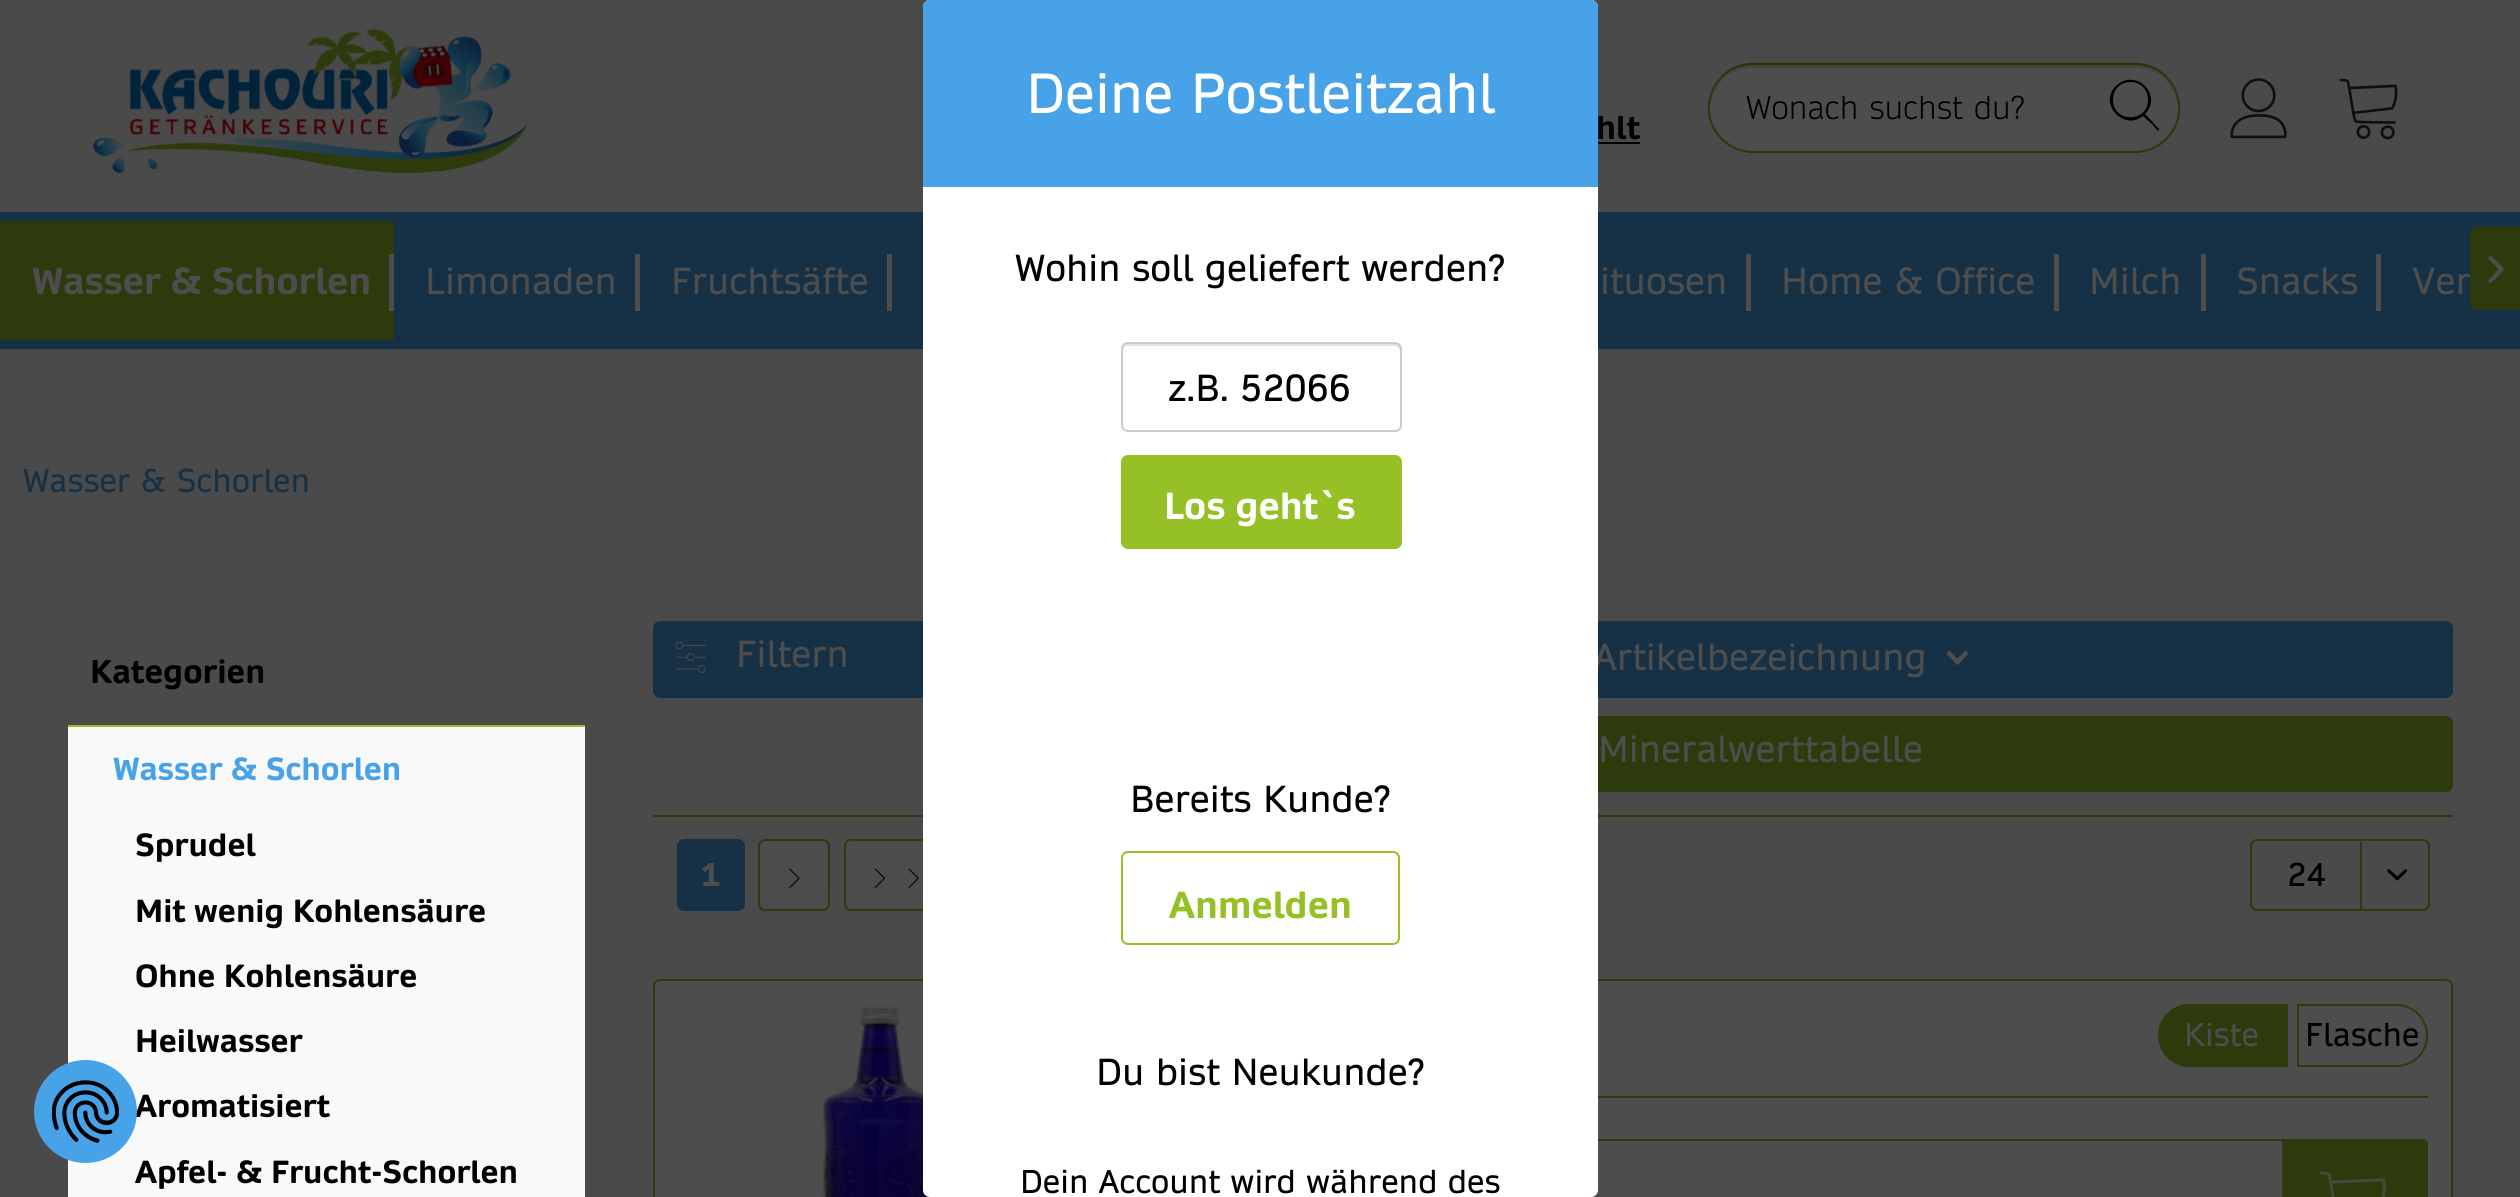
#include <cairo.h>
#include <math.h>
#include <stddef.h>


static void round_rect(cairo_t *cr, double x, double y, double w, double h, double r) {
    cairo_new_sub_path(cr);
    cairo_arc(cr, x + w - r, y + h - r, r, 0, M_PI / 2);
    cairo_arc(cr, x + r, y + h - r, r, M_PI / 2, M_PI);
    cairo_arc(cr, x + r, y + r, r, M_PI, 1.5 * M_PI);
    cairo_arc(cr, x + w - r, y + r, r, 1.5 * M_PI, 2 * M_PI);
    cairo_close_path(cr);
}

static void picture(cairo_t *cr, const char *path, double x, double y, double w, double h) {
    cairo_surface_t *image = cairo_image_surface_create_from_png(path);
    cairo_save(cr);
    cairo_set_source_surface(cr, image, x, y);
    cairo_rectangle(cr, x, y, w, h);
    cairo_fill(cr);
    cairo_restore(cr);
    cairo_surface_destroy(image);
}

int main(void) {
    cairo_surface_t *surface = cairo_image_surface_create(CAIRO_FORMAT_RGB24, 2520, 1197);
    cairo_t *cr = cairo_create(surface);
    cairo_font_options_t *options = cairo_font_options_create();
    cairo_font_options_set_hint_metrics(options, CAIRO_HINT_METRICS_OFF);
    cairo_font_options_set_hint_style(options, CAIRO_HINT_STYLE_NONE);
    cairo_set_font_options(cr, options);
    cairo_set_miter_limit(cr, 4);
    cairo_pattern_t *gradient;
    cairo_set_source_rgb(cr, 0.29, 0.29, 0.29);
    cairo_paint(cr);
    cairo_set_source_rgb(cr, 0.086, 0.192, 0.271);
    cairo_rectangle(cr, 0, 212, 2520, 137);
    cairo_fill(cr);
    round_rect(cr, 653, 621, 882, 77, 7);
    cairo_fill(cr);
    round_rect(cr, 1553, 621, 900, 77, 7);
    cairo_fill(cr);
    cairo_select_font_face(cr, "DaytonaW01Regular", CAIRO_FONT_SLANT_NORMAL, CAIRO_FONT_WEIGHT_NORMAL);
    cairo_set_font_size(cr, 36);
    cairo_set_source_rgb(cr, 0.302, 0.302, 0.302);
    cairo_move_to(cr, 1593, 670);
    cairo_show_text(cr, "Artikelbezeichnung");
    cairo_set_source_rgb(cr, 0.176, 0.227, 0.043);
    round_rect(cr, 1553, 716, 900, 76, 7);
    cairo_fill(cr);
    cairo_rectangle(cr, 653, 815, 1800, 2);
    cairo_fill(cr);
    gradient = cairo_pattern_create_linear(897, 842, 897, 909);
    cairo_pattern_add_color_stop_rgba(gradient, 0, 0.302, 0.302, 0.302, 1);
    cairo_pattern_add_color_stop_rgba(gradient, 1, 0.294, 0.294, 0.294, 1);
    cairo_set_source(cr, gradient);
    cairo_pattern_destroy(gradient);
    round_rect(cr, 846, 842, 101, 67, 5);
    cairo_fill(cr);
    round_rect(cr, 845, 840, 104, 70, 6);
    cairo_set_source_rgb(cr, 0.176, 0.227, 0.043);
    cairo_stroke(cr);
    cairo_set_source_rgb(cr, 0.302, 0.302, 0.302);
    round_rect(cr, 654, 980, 1798, 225, 6);
    cairo_fill_preserve(cr);
    cairo_set_source_rgb(cr, 0.176, 0.227, 0.043);
    cairo_stroke(cr);
    picture(cr, "img10.png", 823, 1003, 107, 194);
    round_rect(cr, 1128, 1140, 1299, 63, 4);
    cairo_stroke(cr);
    cairo_set_source_rgb(cr, 1, 1, 1);
    round_rect(cr, 923, 0, 675, 1197, 7);
    cairo_fill(cr);
    cairo_set_source_rgb(cr, 0.282, 0.635, 0.906);
    cairo_new_path(cr);
    cairo_move_to(cr, 930, 0);
    cairo_line_to(cr, 1591, 0);
    cairo_curve_to(cr, 1595, 0, 1598, 3, 1598, 7);
    cairo_line_to(cr, 1598, 187);
    cairo_line_to(cr, 923, 187);
    cairo_line_to(cr, 923, 7);
    cairo_curve_to(cr, 923, 3, 926, 0, 930, 0);
    cairo_close_path(cr);
    cairo_fill(cr);
    cairo_set_font_size(cr, 54);
    cairo_set_source_rgb(cr, 1, 1, 1);
    cairo_move_to(cr, 1026, 113);
    cairo_show_text(cr, "Deine Postleitzahl");
    cairo_set_font_size(cr, 36);
    cairo_set_source_rgb(cr, 0, 0, 0);
    cairo_move_to(cr, 1015, 281);
    cairo_show_text(cr, "Wohin soll geliefert werden?");
    cairo_set_source_rgb(cr, 0.882, 0.882, 0.882);
    cairo_new_path(cr);
    cairo_move_to(cr, 1127, 346);
    cairo_line_to(cr, 1395, 346);
    cairo_curve_to(cr, 1397, 346, 1400, 349, 1400, 351);
    cairo_line_to(cr, 1400, 349);
    cairo_curve_to(cr, 1400, 346, 1398, 344, 1395, 344);
    cairo_line_to(cr, 1128, 344);
    cairo_curve_to(cr, 1125, 344, 1123, 346, 1123, 349);
    cairo_line_to(cr, 1123, 351);
    cairo_curve_to(cr, 1123, 349, 1125, 346, 1127, 346);
    cairo_close_path(cr);
    cairo_fill(cr);
    round_rect(cr, 1122, 343, 279, 88, 6);
    cairo_set_source_rgb(cr, 0.8, 0.8, 0.8);
    cairo_stroke(cr);
    cairo_set_source_rgb(cr, 0, 0, 0);
    cairo_move_to(cr, 1168, 401);
    cairo_show_text(cr, "z.B. 52066");
    cairo_set_source_rgb(cr, 0.588, 0.757, 0.149);
    round_rect(cr, 1121, 455, 281, 94, 7);
    cairo_fill(cr);
    cairo_select_font_face(cr, "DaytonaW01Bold", CAIRO_FONT_SLANT_NORMAL, CAIRO_FONT_WEIGHT_BOLD);
    cairo_set_source_rgb(cr, 1, 1, 1);
    cairo_move_to(cr, 1164, 519);
    cairo_show_text(cr, "Los geht`s");
    cairo_select_font_face(cr, "DaytonaW01Regular", CAIRO_FONT_SLANT_NORMAL, CAIRO_FONT_WEIGHT_NORMAL);
    cairo_set_source_rgb(cr, 0, 0, 0);
    cairo_move_to(cr, 1130, 812);
    cairo_show_text(cr, "Bereits Kunde?");
    round_rect(cr, 1122, 852, 277, 92, 6);
    cairo_set_source_rgb(cr, 0.588, 0.757, 0.149);
    cairo_stroke(cr);
    cairo_select_font_face(cr, "DaytonaW01Bold", CAIRO_FONT_SLANT_NORMAL, CAIRO_FONT_WEIGHT_BOLD);
    cairo_move_to(cr, 1169, 918);
    cairo_show_text(cr, "Anmelden");
    cairo_select_font_face(cr, "DaytonaW01Regular", CAIRO_FONT_SLANT_NORMAL, CAIRO_FONT_WEIGHT_NORMAL);
    cairo_set_source_rgb(cr, 0, 0, 0);
    cairo_move_to(cr, 1096, 1085);
    cairo_show_text(cr, "Du bist Neukunde?");
    cairo_set_font_size(cr, 31.5);
    cairo_move_to(cr, 1020, 1193);
    cairo_show_text(cr, "Dein Account wird während des");
    picture(cr, "img1.png", 92, 28, 436, 146);
    cairo_set_source_rgb(cr, 0.302, 0.302, 0.302);
    round_rect(cr, 1708, 63, 472, 90, 45);
    cairo_fill(cr);
    cairo_set_source_rgb(cr, 0.267, 0.267, 0.267);
    cairo_new_path(cr);
    cairo_move_to(cr, 1753, 68);
    cairo_line_to(cr, 2135, 68);
    cairo_curve_to(cr, 2159, 68, 2177, 86, 2178, 109);
    cairo_line_to(cr, 2178, 108);
    cairo_curve_to(cr, 2178, 84, 2159, 65, 2135, 65);
    cairo_line_to(cr, 1753, 65);
    cairo_curve_to(cr, 1729, 65, 1710, 84, 1710, 108);
    cairo_line_to(cr, 1710, 109);
    cairo_curve_to(cr, 1711, 86, 1729, 68, 1753, 68);
    cairo_close_path(cr);
    cairo_fill(cr);
    cairo_new_path(cr);
    cairo_move_to(cr, 1721.5, 77);
    cairo_curve_to(cr, 1730, 68.5, 1741, 64, 1753, 64);
    cairo_line_to(cr, 2135, 64);
    cairo_curve_to(cr, 2147, 64, 2158, 68.5, 2166.5, 77);
    cairo_set_source_rgb(cr, 0.157, 0.204, 0.039);
    cairo_set_line_width(cr, 2.2);
    cairo_stroke(cr);
    cairo_new_path(cr);
    cairo_move_to(cr, 2166.5, 77);
    cairo_curve_to(cr, 2176.5, 87.5, 2181, 102.5, 2178.5, 116.5);
    cairo_curve_to(cr, 2174, 137, 2156, 152, 2135, 152);
    cairo_line_to(cr, 1753, 152);
    cairo_curve_to(cr, 1732, 152, 1714, 137, 1709.5, 116.5);
    cairo_curve_to(cr, 1707, 102.5, 1711.5, 87.5, 1721.5, 77);
    cairo_set_source_rgb(cr, 0.176, 0.227, 0.043);
    cairo_stroke(cr);
    cairo_select_font_face(cr, "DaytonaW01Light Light", CAIRO_FONT_SLANT_NORMAL, CAIRO_FONT_WEIGHT_NORMAL);
    cairo_set_source_rgb(cr, 0, 0, 0);
    cairo_move_to(cr, 1746, 119);
    cairo_show_text(cr, "Wonach suchst du?");
    cairo_new_path(cr);
    cairo_move_to(cr, 2159, 129);
    cairo_line_to(cr, 2145, 114);
    cairo_curve_to(cr, 2163, 96, 2137, 68, 2117, 85);
    cairo_curve_to(cr, 2097, 102, 2123, 132, 2143, 116);
    cairo_line_to(cr, 2153, 125);
    cairo_curve_to(cr, 2156, 129, 2158, 132, 2159, 130);
    cairo_close_path(cr);
    cairo_move_to(cr, 2148, 100);
    cairo_curve_to(cr, 2148, 123, 2113, 123, 2113, 100);
    cairo_curve_to(cr, 2113, 76, 2148, 76, 2148, 100);
    cairo_close_path(cr);
    cairo_fill(cr);
    picture(cr, "img2.png", 2230, 78, 57, 61);
    picture(cr, "img3.png", 2339, 78, 59, 62);
    cairo_select_font_face(cr, "DaytonaW01Bold", CAIRO_FONT_SLANT_NORMAL, CAIRO_FONT_WEIGHT_BOLD);
    cairo_move_to(cr, 1596, 139);
    cairo_show_text(cr, "hlt");
    cairo_rectangle(cr, 1598, 142, 42, 2);
    cairo_fill(cr);
    cairo_set_source_rgb(cr, 0.176, 0.227, 0.043);
    cairo_rectangle(cr, 0, 221, 394, 119);
    cairo_fill(cr);
    cairo_set_font_size(cr, 36);
    cairo_set_source_rgb(cr, 0.302, 0.302, 0.302);
    cairo_move_to(cr, 32, 294);
    cairo_show_text(cr, "Wasser & Schorlen");
    cairo_rectangle(cr, 389, 254, 5, 57);
    cairo_fill(cr);
    cairo_select_font_face(cr, "DaytonaW01Regular", CAIRO_FONT_SLANT_NORMAL, CAIRO_FONT_WEIGHT_NORMAL);
    cairo_move_to(cr, 425, 294);
    cairo_show_text(cr, "Limonaden");
    cairo_rectangle(cr, 635, 254, 5, 57);
    cairo_fill(cr);
    cairo_move_to(cr, 671, 294);
    cairo_show_text(cr, "Fruchtsäfte");
    cairo_rectangle(cr, 887, 254, 5, 57);
    cairo_fill(cr);
    cairo_move_to(cr, 1600, 294);
    cairo_show_text(cr, "ituosen");
    cairo_rectangle(cr, 1746, 254, 5, 57);
    cairo_fill(cr);
    cairo_move_to(cr, 1781, 294);
    cairo_show_text(cr, "Home & Office");
    cairo_rectangle(cr, 2054, 254, 5, 57);
    cairo_fill(cr);
    cairo_move_to(cr, 2089, 294);
    cairo_show_text(cr, "Milch");
    cairo_rectangle(cr, 2201, 254, 5, 57);
    cairo_fill(cr);
    cairo_move_to(cr, 2236, 294);
    cairo_show_text(cr, "Snacks");
    cairo_rectangle(cr, 2376, 254, 5, 57);
    cairo_fill(cr);
    cairo_move_to(cr, 2412, 294);
    cairo_show_text(cr, "Ver");
    cairo_set_source_rgb(cr, 0.176, 0.227, 0.043);
    cairo_new_path(cr);
    cairo_move_to(cr, 2478, 230);
    cairo_line_to(cr, 2520, 230);
    cairo_line_to(cr, 2520, 308);
    cairo_line_to(cr, 2478, 308);
    cairo_curve_to(cr, 2475, 308, 2473, 306, 2473, 303);
    cairo_line_to(cr, 2473, 235);
    cairo_curve_to(cr, 2473, 232, 2475, 230, 2478, 230);
    cairo_close_path(cr);
    cairo_fill(cr);
    cairo_set_fill_rule(cr, CAIRO_FILL_RULE_EVEN_ODD);
    cairo_new_path(cr);
    cairo_move_to(cr, 2477, 227);
    cairo_line_to(cr, 2520, 227);
    cairo_line_to(cr, 2520, 310);
    cairo_line_to(cr, 2477, 310);
    cairo_curve_to(cr, 2474, 310, 2470, 307, 2470, 304);
    cairo_line_to(cr, 2470, 234);
    cairo_curve_to(cr, 2470, 230, 2474, 227, 2477, 227);
    cairo_close_path(cr);
    cairo_move_to(cr, 2477, 230);
    cairo_line_to(cr, 2520, 230);
    cairo_line_to(cr, 2520, 308);
    cairo_line_to(cr, 2477, 308);
    cairo_curve_to(cr, 2475, 308, 2473, 306, 2473, 304);
    cairo_line_to(cr, 2473, 234);
    cairo_curve_to(cr, 2473, 232, 2475, 230, 2477, 230);
    cairo_close_path(cr);
    cairo_fill(cr);
    picture(cr, "img4.png", 2488, 256, 16, 27);
    cairo_set_font_size(cr, 31.5);
    cairo_set_source_rgb(cr, 0.086, 0.192, 0.271);
    cairo_move_to(cr, 23, 492);
    cairo_show_text(cr, "Wasser & Schorlen");
    cairo_select_font_face(cr, "DaytonaW01Bold", CAIRO_FONT_SLANT_NORMAL, CAIRO_FONT_WEIGHT_BOLD);
    cairo_set_source_rgb(cr, 0, 0, 0);
    cairo_move_to(cr, 90, 683);
    cairo_show_text(cr, "Kategorien");
    cairo_set_source_rgb(cr, 0.973, 0.973, 0.973);
    cairo_rectangle(cr, 68, 727, 517, 470);
    cairo_fill(cr);
    cairo_set_source_rgb(cr, 0.588, 0.757, 0.149);
    cairo_rectangle(cr, 68, 725, 517, 2);
    cairo_fill(cr);
    cairo_set_font_size(cr, 30.6);
    cairo_set_source_rgb(cr, 0.282, 0.635, 0.906);
    cairo_move_to(cr, 113, 780);
    cairo_show_text(cr, "Wasser & Schorlen");
    cairo_set_source_rgb(cr, 0, 0, 0);
    cairo_move_to(cr, 135, 856);
    cairo_show_text(cr, "Sprudel");
    cairo_move_to(cr, 135, 922);
    cairo_show_text(cr, "Mit wenig Kohlensäure");
    cairo_move_to(cr, 135, 987);
    cairo_show_text(cr, "Ohne Kohlensäure");
    cairo_move_to(cr, 135, 1052);
    cairo_show_text(cr, "Heilwasser");
    cairo_move_to(cr, 135, 1117);
    cairo_show_text(cr, "Aromatisiert");
    cairo_move_to(cr, 135, 1183);
    cairo_show_text(cr, "Apfel- & Frucht-Schorlen");
    picture(cr, "img5.png", 675, 641, 31, 32);
    cairo_select_font_face(cr, "DaytonaW01Regular", CAIRO_FONT_SLANT_NORMAL, CAIRO_FONT_WEIGHT_NORMAL);
    cairo_set_font_size(cr, 36);
    cairo_set_source_rgb(cr, 0.302, 0.302, 0.302);
    cairo_move_to(cr, 736, 667);
    cairo_show_text(cr, "Filtern");
    cairo_set_fill_rule(cr, CAIRO_FILL_RULE_WINDING);
    cairo_new_path(cr);
    cairo_move_to(cr, 1965.5, 650.5);
    cairo_line_to(cr, 1968.5, 654);
    cairo_line_to(cr, 1957.5, 665);
    cairo_line_to(cr, 1954, 662);
    cairo_close_path(cr);
    cairo_fill(cr);
    cairo_new_path(cr);
    cairo_move_to(cr, 1949.5, 650.5);
    cairo_line_to(cr, 1960.5, 662);
    cairo_line_to(cr, 1957.5, 665);
    cairo_line_to(cr, 1946.5, 654);
    cairo_close_path(cr);
    cairo_fill(cr);
    cairo_move_to(cr, 1598, 762);
    cairo_show_text(cr, "Mineralwerttabelle");
    cairo_set_source_rgb(cr, 0.086, 0.192, 0.271);
    round_rect(cr, 677, 839, 68, 72, 7);
    cairo_fill(cr);
    cairo_select_font_face(cr, "DaytonaW01Bold", CAIRO_FONT_SLANT_NORMAL, CAIRO_FONT_WEIGHT_BOLD);
    cairo_set_font_size(cr, 31.5);
    cairo_set_source_rgb(cr, 0.302, 0.302, 0.302);
    cairo_move_to(cr, 700, 886);
    cairo_show_text(cr, "1");
    gradient = cairo_pattern_create_linear(794, 842, 794, 909);
    cairo_pattern_add_color_stop_rgba(gradient, 0, 0.302, 0.302, 0.302, 1);
    cairo_pattern_add_color_stop_rgba(gradient, 1, 0.294, 0.294, 0.294, 1);
    cairo_set_source(cr, gradient);
    cairo_pattern_destroy(gradient);
    round_rect(cr, 761, 842, 67, 67, 5);
    cairo_fill(cr);
    round_rect(cr, 759, 840, 70, 70, 6);
    cairo_set_source_rgb(cr, 0.176, 0.227, 0.043);
    cairo_set_line_width(cr, 2);
    cairo_stroke(cr);
    picture(cr, "img6.png", 789, 868, 11, 21);
    picture(cr, "img7.png", 874, 868, 12, 21);
    picture(cr, "img8.png", 908, 868, 11, 21);
    round_rect(cr, 2251, 840, 178, 70, 6);
    cairo_stroke(cr);
    cairo_select_font_face(cr, "DaytonaW01Regular", CAIRO_FONT_SLANT_NORMAL, CAIRO_FONT_WEIGHT_NORMAL);
    cairo_set_source_rgb(cr, 0, 0, 0);
    cairo_move_to(cr, 2287, 886);
    cairo_show_text(cr, "24");
    cairo_set_source_rgb(cr, 0.176, 0.227, 0.043);
    cairo_rectangle(cr, 2360, 842, 2, 69);
    cairo_fill(cr);
    picture(cr, "img9.png", 2387, 869, 21, 12);
    cairo_rectangle(cr, 1598, 1096, 830, 2);
    cairo_fill(cr);
    cairo_new_path(cr);
    cairo_move_to(cr, 2189.5, 1005);
    cairo_line_to(cr, 2287, 1005);
    cairo_line_to(cr, 2287, 1066);
    cairo_line_to(cr, 2189.5, 1066);
    cairo_curve_to(cr, 2172.5, 1066, 2159, 1052.5, 2159, 1035.5);
    cairo_curve_to(cr, 2159, 1018.5, 2172.5, 1005, 2189.5, 1005);
    cairo_close_path(cr);
    cairo_fill_preserve(cr);
    cairo_stroke(cr);
    cairo_set_source_rgb(cr, 0.302, 0.302, 0.302);
    cairo_move_to(cr, 2184, 1046);
    cairo_show_text(cr, "Kiste");
    cairo_new_path(cr);
    cairo_move_to(cr, 2298, 1005);
    cairo_line_to(cr, 2396.5, 1005);
    cairo_curve_to(cr, 2413.5, 1005, 2427, 1018.5, 2427, 1035.5);
    cairo_curve_to(cr, 2427, 1052.5, 2413.5, 1066, 2396.5, 1066);
    cairo_line_to(cr, 2298, 1066);
    cairo_close_path(cr);
    cairo_set_source_rgb(cr, 0.176, 0.227, 0.043);
    cairo_stroke(cr);
    cairo_set_source_rgb(cr, 0, 0, 0);
    cairo_move_to(cr, 2305, 1046);
    cairo_show_text(cr, "Flasche");
    cairo_set_source_rgb(cr, 0.176, 0.227, 0.043);
    cairo_rectangle(cr, 2282, 1141, 144, 56);
    cairo_fill(cr);
    picture(cr, "img11.png", 2319, 1171, 67, 26);
    cairo_set_source_rgb(cr, 0.282, 0.635, 0.906);
    cairo_arc(cr, 85.5, 1111.5, 50.5, 0, 2 * M_PI);
    cairo_fill_preserve(cr);
    cairo_stroke(cr);
    picture(cr, "img12.png", 52, 1080, 67, 63);
    cairo_surface_write_to_png(surface, "page.png");
    cairo_font_options_destroy(options);
    cairo_destroy(cr);
    cairo_surface_destroy(surface);
    return 0;
}
